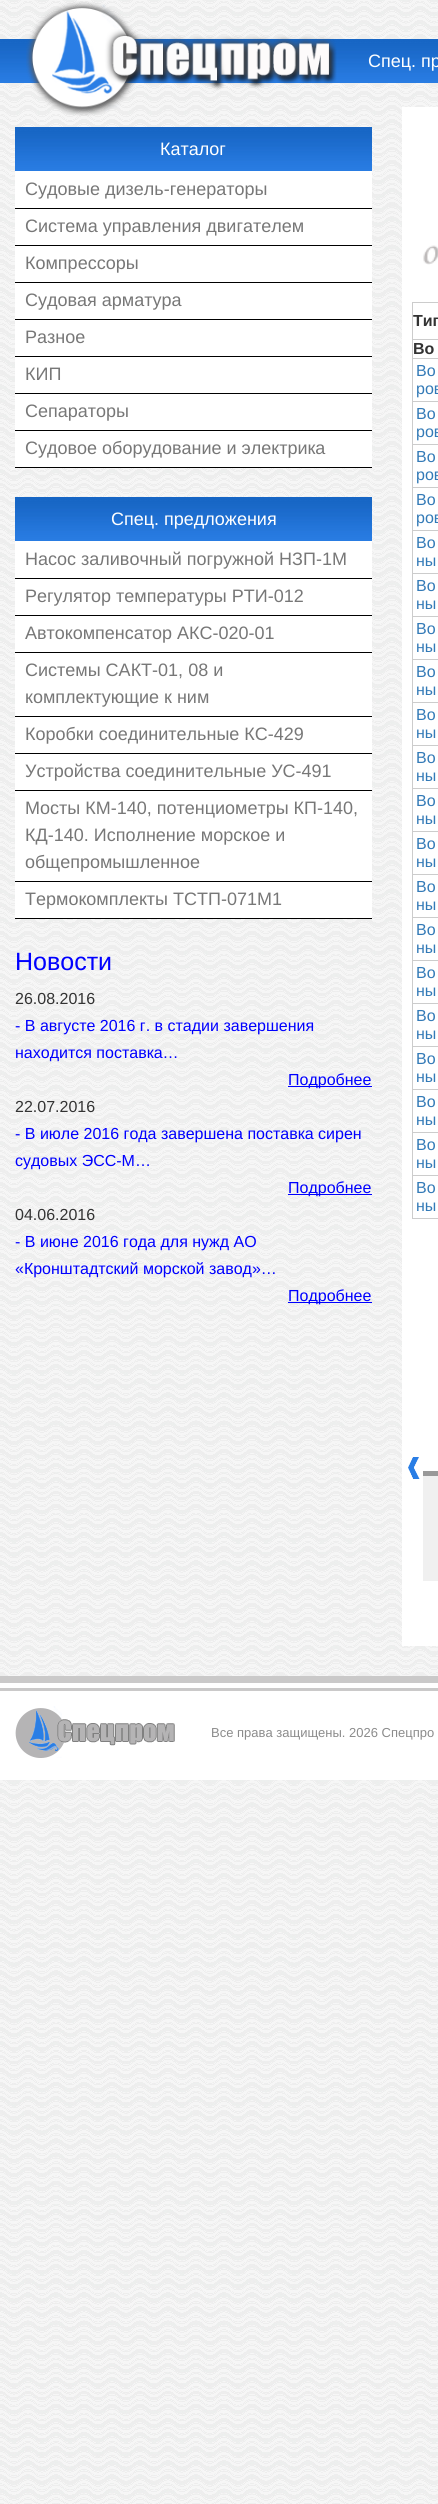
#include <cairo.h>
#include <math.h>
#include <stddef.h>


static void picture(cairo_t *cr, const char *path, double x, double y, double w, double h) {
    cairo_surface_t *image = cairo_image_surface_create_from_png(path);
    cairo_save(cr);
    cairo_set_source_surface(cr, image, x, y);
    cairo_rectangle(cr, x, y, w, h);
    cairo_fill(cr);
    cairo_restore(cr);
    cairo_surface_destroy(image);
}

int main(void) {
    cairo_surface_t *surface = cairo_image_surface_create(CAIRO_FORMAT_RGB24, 438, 2504);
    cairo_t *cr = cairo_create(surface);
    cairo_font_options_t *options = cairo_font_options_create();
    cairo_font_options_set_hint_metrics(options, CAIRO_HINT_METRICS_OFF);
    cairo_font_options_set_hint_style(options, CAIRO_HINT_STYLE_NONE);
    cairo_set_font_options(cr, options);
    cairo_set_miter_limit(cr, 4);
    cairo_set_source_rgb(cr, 1, 1, 1);
    cairo_paint(cr);
    picture(cr, "img1.png", 0, 0, 438, 2504);
    picture(cr, "img2.png", 0, 39, 438, 44);
    picture(cr, "img3.png", 26, 1, 311, 115);
    cairo_select_font_face(cr, "Liberation Sans", CAIRO_FONT_SLANT_NORMAL, CAIRO_FONT_WEIGHT_NORMAL);
    cairo_set_font_size(cr, 18);
    cairo_set_source_rgb(cr, 1, 1, 1);
    cairo_move_to(cr, 368, 67);
    cairo_show_text(cr, "Спец. пр");
    cairo_rectangle(cr, 15, 171, 357, 296);
    cairo_fill(cr);
    picture(cr, "img4.png", 15, 127, 357, 44);
    cairo_move_to(cr, 160, 155);
    cairo_show_text(cr, "Каталог");
    cairo_set_source_rgb(cr, 0, 0, 0);
    cairo_rectangle(cr, 15, 208, 357, 1);
    cairo_fill(cr);
    cairo_set_source_rgb(cr, 0.467, 0.467, 0.467);
    cairo_move_to(cr, 25, 195);
    cairo_show_text(cr, "Судовые дизель-генераторы");
    cairo_set_source_rgb(cr, 0, 0, 0);
    cairo_rectangle(cr, 15, 245, 357, 1);
    cairo_fill(cr);
    cairo_set_source_rgb(cr, 0.467, 0.467, 0.467);
    cairo_move_to(cr, 25, 232);
    cairo_show_text(cr, "Система управления двигателем");
    cairo_set_source_rgb(cr, 0, 0, 0);
    cairo_rectangle(cr, 15, 282, 357, 1);
    cairo_fill(cr);
    cairo_set_source_rgb(cr, 0.467, 0.467, 0.467);
    cairo_move_to(cr, 25, 269);
    cairo_show_text(cr, "Компрессоры");
    cairo_set_source_rgb(cr, 0, 0, 0);
    cairo_rectangle(cr, 15, 319, 357, 1);
    cairo_fill(cr);
    cairo_set_source_rgb(cr, 0.467, 0.467, 0.467);
    cairo_move_to(cr, 25, 306);
    cairo_show_text(cr, "Судовая арматура");
    cairo_set_source_rgb(cr, 0, 0, 0);
    cairo_rectangle(cr, 15, 356, 357, 1);
    cairo_fill(cr);
    cairo_set_source_rgb(cr, 0.467, 0.467, 0.467);
    cairo_move_to(cr, 25, 343);
    cairo_show_text(cr, "Разное");
    cairo_set_source_rgb(cr, 0, 0, 0);
    cairo_rectangle(cr, 15, 393, 357, 1);
    cairo_fill(cr);
    cairo_set_source_rgb(cr, 0.467, 0.467, 0.467);
    cairo_move_to(cr, 25, 380);
    cairo_show_text(cr, "КИП");
    cairo_set_source_rgb(cr, 0, 0, 0);
    cairo_rectangle(cr, 15, 430, 357, 1);
    cairo_fill(cr);
    cairo_set_source_rgb(cr, 0.467, 0.467, 0.467);
    cairo_move_to(cr, 25, 417);
    cairo_show_text(cr, "Сепараторы");
    cairo_set_source_rgb(cr, 0, 0, 0);
    cairo_rectangle(cr, 15, 467, 357, 1);
    cairo_fill(cr);
    cairo_set_source_rgb(cr, 0.467, 0.467, 0.467);
    cairo_move_to(cr, 25, 454);
    cairo_show_text(cr, "Судовое оборудование и электрика");
    cairo_set_source_rgb(cr, 1, 1, 1);
    cairo_rectangle(cr, 15, 541, 357, 377);
    cairo_fill(cr);
    picture(cr, "img4.png", 15, 497, 357, 44);
    cairo_move_to(cr, 111, 525);
    cairo_show_text(cr, "Спец. предложения");
    cairo_set_source_rgb(cr, 0, 0, 0);
    cairo_rectangle(cr, 15, 578, 357, 1);
    cairo_fill(cr);
    cairo_set_source_rgb(cr, 0.467, 0.467, 0.467);
    cairo_move_to(cr, 25, 565);
    cairo_show_text(cr, "Насос заливочный погружной НЗП-1М");
    cairo_set_source_rgb(cr, 0, 0, 0);
    cairo_rectangle(cr, 15, 615, 357, 1);
    cairo_fill(cr);
    cairo_set_source_rgb(cr, 0.467, 0.467, 0.467);
    cairo_move_to(cr, 25, 602);
    cairo_show_text(cr, "Регулятор температуры РТИ-012");
    cairo_set_source_rgb(cr, 0, 0, 0);
    cairo_rectangle(cr, 15, 652, 357, 1);
    cairo_fill(cr);
    cairo_set_source_rgb(cr, 0.467, 0.467, 0.467);
    cairo_move_to(cr, 25, 639);
    cairo_show_text(cr, "Автокомпенсатор АКС-020-01");
    cairo_set_source_rgb(cr, 0, 0, 0);
    cairo_rectangle(cr, 15, 716, 357, 1);
    cairo_fill(cr);
    cairo_set_source_rgb(cr, 0.467, 0.467, 0.467);
    cairo_move_to(cr, 25, 676);
    cairo_show_text(cr, "Системы САКТ-01, 08 и");
    cairo_move_to(cr, 25, 703);
    cairo_show_text(cr, "комплектующие к ним");
    cairo_set_source_rgb(cr, 0, 0, 0);
    cairo_rectangle(cr, 15, 753, 357, 1);
    cairo_fill(cr);
    cairo_set_source_rgb(cr, 0.467, 0.467, 0.467);
    cairo_move_to(cr, 25, 740);
    cairo_show_text(cr, "Коробки соединительные КС-429");
    cairo_set_source_rgb(cr, 0, 0, 0);
    cairo_rectangle(cr, 15, 790, 357, 1);
    cairo_fill(cr);
    cairo_set_source_rgb(cr, 0.467, 0.467, 0.467);
    cairo_move_to(cr, 25, 777);
    cairo_show_text(cr, "Устройства соединительные УС-491");
    cairo_set_source_rgb(cr, 0, 0, 0);
    cairo_rectangle(cr, 15, 881, 357, 1);
    cairo_fill(cr);
    cairo_set_source_rgb(cr, 0.467, 0.467, 0.467);
    cairo_move_to(cr, 25, 814);
    cairo_show_text(cr, "Мосты КМ-140, потенциометры КП-140,");
    cairo_move_to(cr, 25, 841);
    cairo_show_text(cr, "КД-140. Исполнение морское и");
    cairo_move_to(cr, 25, 868);
    cairo_show_text(cr, "общепромышленное");
    cairo_set_source_rgb(cr, 0, 0, 0);
    cairo_rectangle(cr, 15, 918, 357, 1);
    cairo_fill(cr);
    cairo_set_source_rgb(cr, 0.467, 0.467, 0.467);
    cairo_move_to(cr, 25, 905);
    cairo_show_text(cr, "Термокомплекты ТСТП-071М1");
    cairo_set_font_size(cr, 25);
    cairo_set_source_rgb(cr, 0, 0, 1);
    cairo_move_to(cr, 15, 970);
    cairo_show_text(cr, "Новости");
    cairo_set_font_size(cr, 16);
    cairo_set_source_rgb(cr, 0.2, 0.2, 0.2);
    cairo_move_to(cr, 15, 1004);
    cairo_show_text(cr, "26.08.2016");
    cairo_set_source_rgb(cr, 0, 0, 1);
    cairo_move_to(cr, 15, 1031);
    cairo_show_text(cr, "- В августе 2016 г. в стадии завершения");
    cairo_move_to(cr, 15, 1058);
    cairo_show_text(cr, "находится поставка…");
    cairo_rectangle(cr, 288, 1086, 84, 1);
    cairo_fill(cr);
    cairo_move_to(cr, 288, 1085);
    cairo_show_text(cr, "Подробнее");
    cairo_set_source_rgb(cr, 0.2, 0.2, 0.2);
    cairo_move_to(cr, 15, 1112);
    cairo_show_text(cr, "22.07.2016");
    cairo_set_source_rgb(cr, 0, 0, 1);
    cairo_move_to(cr, 15, 1139);
    cairo_show_text(cr, "- В июле 2016 года завершена поставка сирен");
    cairo_move_to(cr, 15, 1166);
    cairo_show_text(cr, "судовых ЭСС-М…");
    cairo_rectangle(cr, 288, 1194, 84, 1);
    cairo_fill(cr);
    cairo_move_to(cr, 288, 1193);
    cairo_show_text(cr, "Подробнее");
    cairo_set_source_rgb(cr, 0.2, 0.2, 0.2);
    cairo_move_to(cr, 15, 1220);
    cairo_show_text(cr, "04.06.2016");
    cairo_set_source_rgb(cr, 0, 0, 1);
    cairo_move_to(cr, 15, 1247);
    cairo_show_text(cr, "- В июне 2016 года для нужд АО");
    cairo_move_to(cr, 15, 1274);
    cairo_show_text(cr, "«Кронштадтский морской завод»…");
    cairo_rectangle(cr, 288, 1302, 84, 1);
    cairo_fill(cr);
    cairo_move_to(cr, 288, 1301);
    cairo_show_text(cr, "Подробнее");
    cairo_set_source_rgb(cr, 1, 1, 1);
    cairo_rectangle(cr, 402, 107, 36, 1539);
    cairo_fill(cr);
    picture(cr, "img5.png", 423, 245, 15, 20);
    cairo_set_source_rgb(cr, 0.8, 0.8, 0.8);
    cairo_rectangle(cr, 412, 302, 26, 1);
    cairo_fill(cr);
    cairo_rectangle(cr, 412, 339, 26, 1);
    cairo_fill(cr);
    cairo_rectangle(cr, 412, 358, 26, 1);
    cairo_fill(cr);
    cairo_rectangle(cr, 412, 401, 26, 1);
    cairo_fill(cr);
    cairo_rectangle(cr, 412, 444, 26, 1);
    cairo_fill(cr);
    cairo_rectangle(cr, 412, 487, 26, 1);
    cairo_fill(cr);
    cairo_rectangle(cr, 412, 530, 26, 1);
    cairo_fill(cr);
    cairo_rectangle(cr, 412, 573, 26, 1);
    cairo_fill(cr);
    cairo_rectangle(cr, 412, 616, 26, 1);
    cairo_fill(cr);
    cairo_rectangle(cr, 412, 659, 26, 1);
    cairo_fill(cr);
    cairo_rectangle(cr, 412, 702, 26, 1);
    cairo_fill(cr);
    cairo_rectangle(cr, 412, 745, 26, 1);
    cairo_fill(cr);
    cairo_rectangle(cr, 412, 788, 26, 1);
    cairo_fill(cr);
    cairo_rectangle(cr, 412, 831, 26, 1);
    cairo_fill(cr);
    cairo_rectangle(cr, 412, 874, 26, 1);
    cairo_fill(cr);
    cairo_rectangle(cr, 412, 917, 26, 1);
    cairo_fill(cr);
    cairo_rectangle(cr, 412, 960, 26, 1);
    cairo_fill(cr);
    cairo_rectangle(cr, 412, 1003, 26, 1);
    cairo_fill(cr);
    cairo_rectangle(cr, 412, 1046, 26, 1);
    cairo_fill(cr);
    cairo_rectangle(cr, 412, 1089, 26, 1);
    cairo_fill(cr);
    cairo_rectangle(cr, 412, 1132, 26, 1);
    cairo_fill(cr);
    cairo_rectangle(cr, 412, 1175, 26, 1);
    cairo_fill(cr);
    cairo_rectangle(cr, 412, 1218, 26, 1);
    cairo_fill(cr);
    cairo_rectangle(cr, 412, 1175, 1, 44);
    cairo_fill(cr);
    cairo_rectangle(cr, 412, 1132, 1, 44);
    cairo_fill(cr);
    cairo_rectangle(cr, 412, 1089, 1, 44);
    cairo_fill(cr);
    cairo_rectangle(cr, 412, 1046, 1, 44);
    cairo_fill(cr);
    cairo_rectangle(cr, 412, 1003, 1, 44);
    cairo_fill(cr);
    cairo_rectangle(cr, 412, 960, 1, 44);
    cairo_fill(cr);
    cairo_rectangle(cr, 412, 917, 1, 44);
    cairo_fill(cr);
    cairo_rectangle(cr, 412, 874, 1, 44);
    cairo_fill(cr);
    cairo_rectangle(cr, 412, 831, 1, 44);
    cairo_fill(cr);
    cairo_rectangle(cr, 412, 788, 1, 44);
    cairo_fill(cr);
    cairo_rectangle(cr, 412, 745, 1, 44);
    cairo_fill(cr);
    cairo_rectangle(cr, 412, 702, 1, 44);
    cairo_fill(cr);
    cairo_rectangle(cr, 412, 659, 1, 44);
    cairo_fill(cr);
    cairo_rectangle(cr, 412, 616, 1, 44);
    cairo_fill(cr);
    cairo_rectangle(cr, 412, 573, 1, 44);
    cairo_fill(cr);
    cairo_rectangle(cr, 412, 530, 1, 44);
    cairo_fill(cr);
    cairo_rectangle(cr, 412, 487, 1, 44);
    cairo_fill(cr);
    cairo_rectangle(cr, 412, 444, 1, 44);
    cairo_fill(cr);
    cairo_rectangle(cr, 412, 401, 1, 44);
    cairo_fill(cr);
    cairo_rectangle(cr, 412, 358, 1, 44);
    cairo_fill(cr);
    cairo_rectangle(cr, 412, 339, 1, 20);
    cairo_fill(cr);
    cairo_rectangle(cr, 412, 302, 1, 38);
    cairo_fill(cr);
    cairo_select_font_face(cr, "Liberation Sans", CAIRO_FONT_SLANT_NORMAL, CAIRO_FONT_WEIGHT_BOLD);
    cairo_set_source_rgb(cr, 0.2, 0.2, 0.2);
    cairo_move_to(cr, 413, 326);
    cairo_show_text(cr, "Тип");
    cairo_move_to(cr, 413, 354);
    cairo_show_text(cr, "Во");
    cairo_select_font_face(cr, "Liberation Sans", CAIRO_FONT_SLANT_NORMAL, CAIRO_FONT_WEIGHT_NORMAL);
    cairo_set_source_rgb(cr, 0.2, 0.478, 0.718);
    cairo_move_to(cr, 416, 376);
    cairo_show_text(cr, "Во");
    cairo_move_to(cr, 416, 394);
    cairo_show_text(cr, "ров");
    cairo_move_to(cr, 416, 419);
    cairo_show_text(cr, "Во");
    cairo_move_to(cr, 416, 437);
    cairo_show_text(cr, "ров");
    cairo_move_to(cr, 416, 462);
    cairo_show_text(cr, "Во");
    cairo_move_to(cr, 416, 480);
    cairo_show_text(cr, "ров");
    cairo_move_to(cr, 416, 505);
    cairo_show_text(cr, "Во");
    cairo_move_to(cr, 416, 523);
    cairo_show_text(cr, "ров");
    cairo_move_to(cr, 416, 548);
    cairo_show_text(cr, "Во");
    cairo_move_to(cr, 416, 566);
    cairo_show_text(cr, "ны");
    cairo_move_to(cr, 416, 591);
    cairo_show_text(cr, "Во");
    cairo_move_to(cr, 416, 609);
    cairo_show_text(cr, "ны");
    cairo_move_to(cr, 416, 634);
    cairo_show_text(cr, "Во");
    cairo_move_to(cr, 416, 652);
    cairo_show_text(cr, "ны");
    cairo_move_to(cr, 416, 677);
    cairo_show_text(cr, "Во");
    cairo_move_to(cr, 416, 695);
    cairo_show_text(cr, "ны");
    cairo_move_to(cr, 416, 720);
    cairo_show_text(cr, "Во");
    cairo_move_to(cr, 416, 738);
    cairo_show_text(cr, "ны");
    cairo_move_to(cr, 416, 763);
    cairo_show_text(cr, "Во");
    cairo_move_to(cr, 416, 781);
    cairo_show_text(cr, "ны");
    cairo_move_to(cr, 416, 806);
    cairo_show_text(cr, "Во");
    cairo_move_to(cr, 416, 824);
    cairo_show_text(cr, "ны");
    cairo_move_to(cr, 416, 849);
    cairo_show_text(cr, "Во");
    cairo_move_to(cr, 416, 867);
    cairo_show_text(cr, "ны");
    cairo_move_to(cr, 416, 892);
    cairo_show_text(cr, "Во");
    cairo_move_to(cr, 416, 910);
    cairo_show_text(cr, "ны");
    cairo_move_to(cr, 416, 935);
    cairo_show_text(cr, "Во");
    cairo_move_to(cr, 416, 953);
    cairo_show_text(cr, "ны");
    cairo_move_to(cr, 416, 978);
    cairo_show_text(cr, "Во");
    cairo_move_to(cr, 416, 996);
    cairo_show_text(cr, "ны");
    cairo_move_to(cr, 416, 1021);
    cairo_show_text(cr, "Во");
    cairo_move_to(cr, 416, 1039);
    cairo_show_text(cr, "ны");
    cairo_move_to(cr, 416, 1064);
    cairo_show_text(cr, "Во");
    cairo_move_to(cr, 416, 1082);
    cairo_show_text(cr, "ны");
    cairo_move_to(cr, 416, 1107);
    cairo_show_text(cr, "Во");
    cairo_move_to(cr, 416, 1125);
    cairo_show_text(cr, "ны");
    cairo_move_to(cr, 416, 1150);
    cairo_show_text(cr, "Во");
    cairo_move_to(cr, 416, 1168);
    cairo_show_text(cr, "ны");
    cairo_move_to(cr, 416, 1193);
    cairo_show_text(cr, "Во");
    cairo_move_to(cr, 416, 1211);
    cairo_show_text(cr, "ны");
    picture(cr, "img6.png", 408, 1457, 12, 22);
    cairo_set_source_rgb(cr, 0.941, 0.941, 0.941);
    cairo_rectangle(cr, 423, 1476, 15, 105);
    cairo_fill(cr);
    cairo_set_source_rgb(cr, 0.6, 0.6, 0.6);
    cairo_rectangle(cr, 423, 1471, 15, 5);
    cairo_fill(cr);
    cairo_set_source_rgb(cr, 1, 1, 1);
    cairo_rectangle(cr, 0, 1683, 438, 97);
    cairo_fill(cr);
    picture(cr, "img7.png", 0, 1676, 438, 15);
    picture(cr, "img8.png", 15, 1706, 160, 52);
    cairo_set_font_size(cr, 13);
    cairo_set_source_rgb(cr, 0.545, 0.545, 0.545);
    cairo_move_to(cr, 211, 1737);
    cairo_show_text(cr, "Все права защищены. 2026 Спецпро");
    cairo_surface_write_to_png(surface, "page.png");
    cairo_font_options_destroy(options);
    cairo_destroy(cr);
    cairo_surface_destroy(surface);
    return 0;
}
